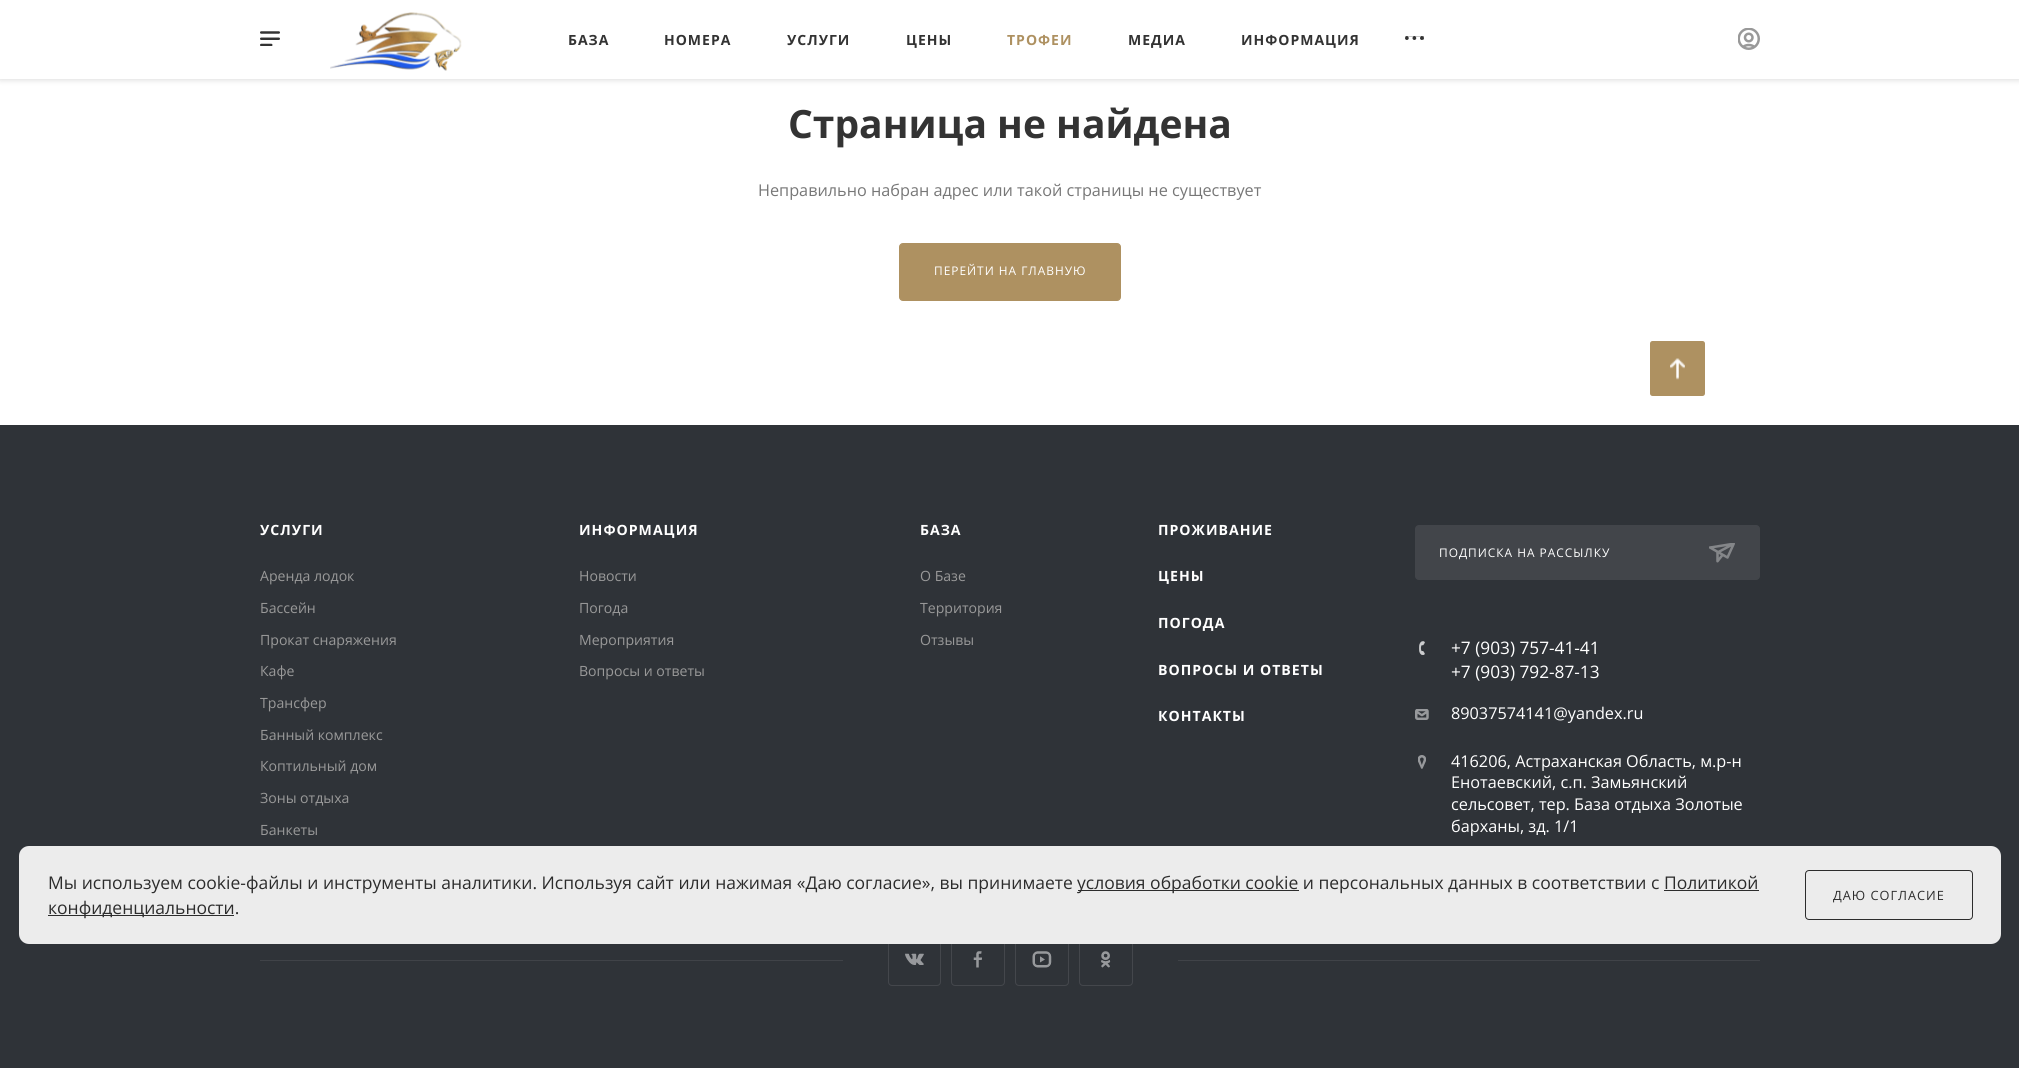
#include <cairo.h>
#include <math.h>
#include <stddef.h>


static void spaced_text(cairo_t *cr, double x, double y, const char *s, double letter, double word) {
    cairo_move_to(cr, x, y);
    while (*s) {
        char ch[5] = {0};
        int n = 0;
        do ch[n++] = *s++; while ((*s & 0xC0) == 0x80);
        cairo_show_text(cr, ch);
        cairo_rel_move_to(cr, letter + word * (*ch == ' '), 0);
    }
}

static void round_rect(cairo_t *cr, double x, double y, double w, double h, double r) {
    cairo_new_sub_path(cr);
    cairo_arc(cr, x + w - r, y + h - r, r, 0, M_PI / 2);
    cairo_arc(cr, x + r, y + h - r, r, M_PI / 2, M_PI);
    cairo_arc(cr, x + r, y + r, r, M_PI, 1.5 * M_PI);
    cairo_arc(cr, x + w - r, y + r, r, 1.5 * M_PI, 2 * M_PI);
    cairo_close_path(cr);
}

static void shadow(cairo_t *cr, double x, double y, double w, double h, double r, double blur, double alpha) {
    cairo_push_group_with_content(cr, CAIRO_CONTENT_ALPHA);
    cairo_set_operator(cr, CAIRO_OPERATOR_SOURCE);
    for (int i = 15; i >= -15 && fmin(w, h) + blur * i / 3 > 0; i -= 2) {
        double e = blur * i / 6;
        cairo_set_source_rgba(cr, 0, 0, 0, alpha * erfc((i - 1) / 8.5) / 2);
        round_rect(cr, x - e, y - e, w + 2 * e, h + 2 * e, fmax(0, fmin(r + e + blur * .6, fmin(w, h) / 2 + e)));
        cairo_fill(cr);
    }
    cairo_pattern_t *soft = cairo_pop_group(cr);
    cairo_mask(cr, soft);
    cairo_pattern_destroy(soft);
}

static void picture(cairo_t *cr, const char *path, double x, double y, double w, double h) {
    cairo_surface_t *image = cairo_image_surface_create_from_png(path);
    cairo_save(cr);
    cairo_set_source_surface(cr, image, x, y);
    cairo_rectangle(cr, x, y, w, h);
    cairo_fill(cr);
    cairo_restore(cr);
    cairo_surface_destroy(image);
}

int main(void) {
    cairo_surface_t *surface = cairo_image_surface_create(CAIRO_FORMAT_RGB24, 2019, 1068);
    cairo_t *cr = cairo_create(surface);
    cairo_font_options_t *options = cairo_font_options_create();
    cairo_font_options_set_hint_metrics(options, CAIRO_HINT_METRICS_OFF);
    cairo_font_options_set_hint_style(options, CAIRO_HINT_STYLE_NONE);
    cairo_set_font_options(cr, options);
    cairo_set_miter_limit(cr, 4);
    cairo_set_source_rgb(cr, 1, 1, 1);
    cairo_paint(cr);
    cairo_set_source_rgb(cr, 0, 0, 0);
    shadow(cr, 0, 1, 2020, 79, 0, 3, 0.14);
    cairo_set_source_rgb(cr, 1, 1, 1);
    cairo_rectangle(cr, 0, 0, 2019, 79);
    cairo_fill(cr);
    picture(cr, "img1.png", 260, 31, 20, 15);
    picture(cr, "img2.png", 330, 12, 132, 59);
    cairo_select_font_face(cr, "Open Sans", CAIRO_FONT_SLANT_NORMAL, CAIRO_FONT_WEIGHT_BOLD);
    cairo_set_font_size(cr, 14);
    cairo_set_source_rgb(cr, 0.2, 0.2, 0.2);
    spaced_text(cr, 568, 45, "БАЗА", 1, 0);
    spaced_text(cr, 664, 45, "НОМЕРА", 1, 0);
    spaced_text(cr, 787, 45, "УСЛУГИ", 1, 0);
    spaced_text(cr, 906, 45, "ЦЕНЫ", 1, 0);
    cairo_set_source_rgb(cr, 0.682, 0.569, 0.38);
    spaced_text(cr, 1007, 45, "ТРОФЕИ", 1, 0);
    cairo_set_source_rgb(cr, 0.2, 0.2, 0.2);
    spaced_text(cr, 1128, 45, "МЕДИА", 1, 0);
    spaced_text(cr, 1241, 45, "ИНФОРМАЦИЯ", 1, 0);
    cairo_rectangle(cr, 1405, 36, 19, 4);
    cairo_fill(cr);
    picture(cr, "img3.png", 1405, 36, 19, 4);
    picture(cr, "img4.png", 1738, 28, 22, 22);
    cairo_set_font_size(cr, 39);
    cairo_move_to(cr, 788, 138);
    cairo_show_text(cr, "Страница не найдена");
    cairo_select_font_face(cr, "Open Sans", CAIRO_FONT_SLANT_NORMAL, CAIRO_FONT_WEIGHT_NORMAL);
    cairo_set_font_size(cr, 16.25);
    cairo_set_source_rgb(cr, 0.467, 0.467, 0.467);
    cairo_move_to(cr, 758, 196);
    cairo_show_text(cr, "Неправильно набран адрес или такой страницы не существует");
    cairo_set_source_rgb(cr, 0.682, 0.569, 0.38);
    round_rect(cr, 899.5, 243.5, 221, 57, 3.5);
    cairo_fill_preserve(cr);
    cairo_set_line_width(cr, 1);
    cairo_stroke(cr);
    cairo_set_font_size(cr, 11.9);
    cairo_set_source_rgb(cr, 1, 1, 1);
    spaced_text(cr, 934, 275, "ПЕРЕЙТИ НА ГЛАВНУЮ", 1, 0);
    cairo_set_source_rgb(cr, 0.682, 0.569, 0.38);
    round_rect(cr, 1650, 341, 55, 55, 2.5);
    cairo_fill(cr);
    picture(cr, "img5.png", 1670, 358, 15, 22);
    cairo_set_source_rgb(cr, 0.184, 0.2, 0.22);
    cairo_rectangle(cr, 0, 425, 2019, 643);
    cairo_fill(cr);
    cairo_select_font_face(cr, "Open Sans", CAIRO_FONT_SLANT_NORMAL, CAIRO_FONT_WEIGHT_BOLD);
    cairo_set_font_size(cr, 14.1);
    cairo_set_source_rgb(cr, 1, 1, 1);
    spaced_text(cr, 260, 535, "УСЛУГИ", 1, 0);
    cairo_select_font_face(cr, "Open Sans", CAIRO_FONT_SLANT_NORMAL, CAIRO_FONT_WEIGHT_NORMAL);
    cairo_set_source_rgb(cr, 0.6, 0.6, 0.6);
    cairo_move_to(cr, 260, 581);
    cairo_show_text(cr, "Аренда лодок");
    cairo_move_to(cr, 260, 613);
    cairo_show_text(cr, "Бассейн");
    cairo_move_to(cr, 260, 645);
    cairo_show_text(cr, "Прокат снаряжения");
    cairo_move_to(cr, 260, 676);
    cairo_show_text(cr, "Кафе");
    cairo_move_to(cr, 260, 708);
    cairo_show_text(cr, "Трансфер");
    cairo_move_to(cr, 260, 740);
    cairo_show_text(cr, "Банный комплекс");
    cairo_move_to(cr, 260, 771);
    cairo_show_text(cr, "Коптильный дом");
    cairo_move_to(cr, 260, 803);
    cairo_show_text(cr, "Зоны отдыха");
    cairo_move_to(cr, 260, 835);
    cairo_show_text(cr, "Банкеты");
    cairo_select_font_face(cr, "Open Sans", CAIRO_FONT_SLANT_NORMAL, CAIRO_FONT_WEIGHT_BOLD);
    cairo_set_source_rgb(cr, 1, 1, 1);
    spaced_text(cr, 579, 535, "ИНФОРМАЦИЯ", 1, 0);
    cairo_select_font_face(cr, "Open Sans", CAIRO_FONT_SLANT_NORMAL, CAIRO_FONT_WEIGHT_NORMAL);
    cairo_set_source_rgb(cr, 0.6, 0.6, 0.6);
    cairo_move_to(cr, 579, 581);
    cairo_show_text(cr, "Новости");
    cairo_move_to(cr, 579, 613);
    cairo_show_text(cr, "Погода");
    cairo_move_to(cr, 579, 645);
    cairo_show_text(cr, "Мероприятия");
    cairo_move_to(cr, 579, 676);
    cairo_show_text(cr, "Вопросы и ответы");
    cairo_select_font_face(cr, "Open Sans", CAIRO_FONT_SLANT_NORMAL, CAIRO_FONT_WEIGHT_BOLD);
    cairo_set_source_rgb(cr, 1, 1, 1);
    spaced_text(cr, 920, 535, "БАЗА", 1, 0);
    cairo_select_font_face(cr, "Open Sans", CAIRO_FONT_SLANT_NORMAL, CAIRO_FONT_WEIGHT_NORMAL);
    cairo_set_source_rgb(cr, 0.6, 0.6, 0.6);
    cairo_move_to(cr, 920, 581);
    cairo_show_text(cr, "О Базе");
    cairo_move_to(cr, 920, 613);
    cairo_show_text(cr, "Территория");
    cairo_move_to(cr, 920, 645);
    cairo_show_text(cr, "Отзывы");
    cairo_select_font_face(cr, "Open Sans", CAIRO_FONT_SLANT_NORMAL, CAIRO_FONT_WEIGHT_BOLD);
    cairo_set_source_rgb(cr, 1, 1, 1);
    spaced_text(cr, 1158, 535, "ПРОЖИВАНИЕ", 1, 0);
    spaced_text(cr, 1158, 581, "ЦЕНЫ", 1, 0);
    spaced_text(cr, 1158, 628, "ПОГОДА", 1, 0);
    spaced_text(cr, 1158, 675, "ВОПРОСЫ И ОТВЕТЫ", 1, 0);
    spaced_text(cr, 1158, 721, "КОНТАКТЫ", 1, 0);
    cairo_set_source_rgb(cr, 0.259, 0.271, 0.29);
    round_rect(cr, 1415.5, 525.5, 344, 54, 3.5);
    cairo_fill_preserve(cr);
    cairo_stroke(cr);
    cairo_select_font_face(cr, "Open Sans", CAIRO_FONT_SLANT_NORMAL, CAIRO_FONT_WEIGHT_NORMAL);
    cairo_set_font_size(cr, 11.9);
    cairo_set_source_rgb(cr, 1, 1, 1);
    spaced_text(cr, 1439, 557, "ПОДПИСКА НА РАССЫЛКУ", 1, 0);
    picture(cr, "img6.png", 1709, 543, 26, 20);
    picture(cr, "img7.png", 1419, 641, 6, 14);
    picture(cr, "img8.png", 1419, 641, 6, 14);
    cairo_set_font_size(cr, 17.25);
    cairo_move_to(cr, 1451, 654);
    cairo_show_text(cr, "+7 (903) 757-41-41");
    cairo_move_to(cr, 1451, 678);
    cairo_show_text(cr, "+7 (903) 792-87-13");
    picture(cr, "img9.png", 1415, 709, 14, 11);
    cairo_set_font_size(cr, 16.25);
    cairo_move_to(cr, 1451, 719);
    cairo_show_text(cr, "89037574141@yandex.ru");
    picture(cr, "img10.png", 1418, 755, 8, 14);
    cairo_move_to(cr, 1451, 767);
    cairo_show_text(cr, "416206, Астраханская Область, м.р-н");
    cairo_move_to(cr, 1451, 788);
    cairo_show_text(cr, "Енотаевский, с.п. Замьянский");
    cairo_move_to(cr, 1451, 810);
    cairo_show_text(cr, "сельсовет, тер. База отдыха Золотые");
    cairo_move_to(cr, 1451, 832);
    cairo_show_text(cr, "барханы, зд. 1/1");
    cairo_set_source_rgb(cr, 0.251, 0.263, 0.282);
    cairo_rectangle(cr, 260, 960, 1500, 1);
    cairo_fill(cr);
    cairo_set_source_rgb(cr, 0.184, 0.2, 0.22);
    cairo_rectangle(cr, 843, 960, 335, 1);
    cairo_fill(cr);
    picture(cr, "img11.png", 905, 953, 19, 12);
    round_rect(cr, 888.5, 933.5, 52, 52, 3.5);
    cairo_set_source_rgb(cr, 0.267, 0.278, 0.298);
    cairo_stroke(cr);
    picture(cr, "img12.png", 973, 951, 9, 17);
    round_rect(cr, 951.5, 933.5, 53, 52, 3.5);
    cairo_stroke(cr);
    picture(cr, "img13.png", 1032, 951, 20, 17);
    round_rect(cr, 1015.5, 933.5, 53, 52, 3.5);
    cairo_stroke(cr);
    picture(cr, "img14.png", 1101, 951, 10, 17);
    round_rect(cr, 1079.5, 933.5, 53, 52, 3.5);
    cairo_stroke(cr);
    cairo_set_source_rgb(cr, 0.922, 0.922, 0.922);
    round_rect(cr, 19, 846, 1982, 98, 10);
    cairo_fill(cr);
    cairo_set_font_size(cr, 17.5);
    cairo_set_source_rgb(cr, 0.173, 0.173, 0.173);
    cairo_move_to(cr, 48, 889);
    cairo_show_text(cr, "Мы используем cookie-файлы и инструменты аналитики. Используя сайт или нажимая «Даю согласие», вы принимаете");
    cairo_rectangle(cr, 1078, 890, 221, 1);
    cairo_fill(cr);
    cairo_move_to(cr, 1077, 889);
    cairo_show_text(cr, "условия обработки cookie и персональных данных в соответствии с Политикой");
    cairo_rectangle(cr, 48, 915, 186, 1);
    cairo_fill(cr);
    cairo_move_to(cr, 48, 914);
    cairo_show_text(cr, "конфиденциальности.");
    cairo_rectangle(cr, 1664, 890, 95, 1);
    cairo_fill(cr);
    round_rect(cr, 1805.5, 870.5, 167, 49, 3.5);
    cairo_stroke(cr);
    cairo_set_font_size(cr, 12.75);
    spaced_text(cr, 1833, 900, "ДАЮ СОГЛАСИЕ", 1, 0);
    cairo_surface_write_to_png(surface, "page.png");
    cairo_font_options_destroy(options);
    cairo_destroy(cr);
    cairo_surface_destroy(surface);
    return 0;
}
